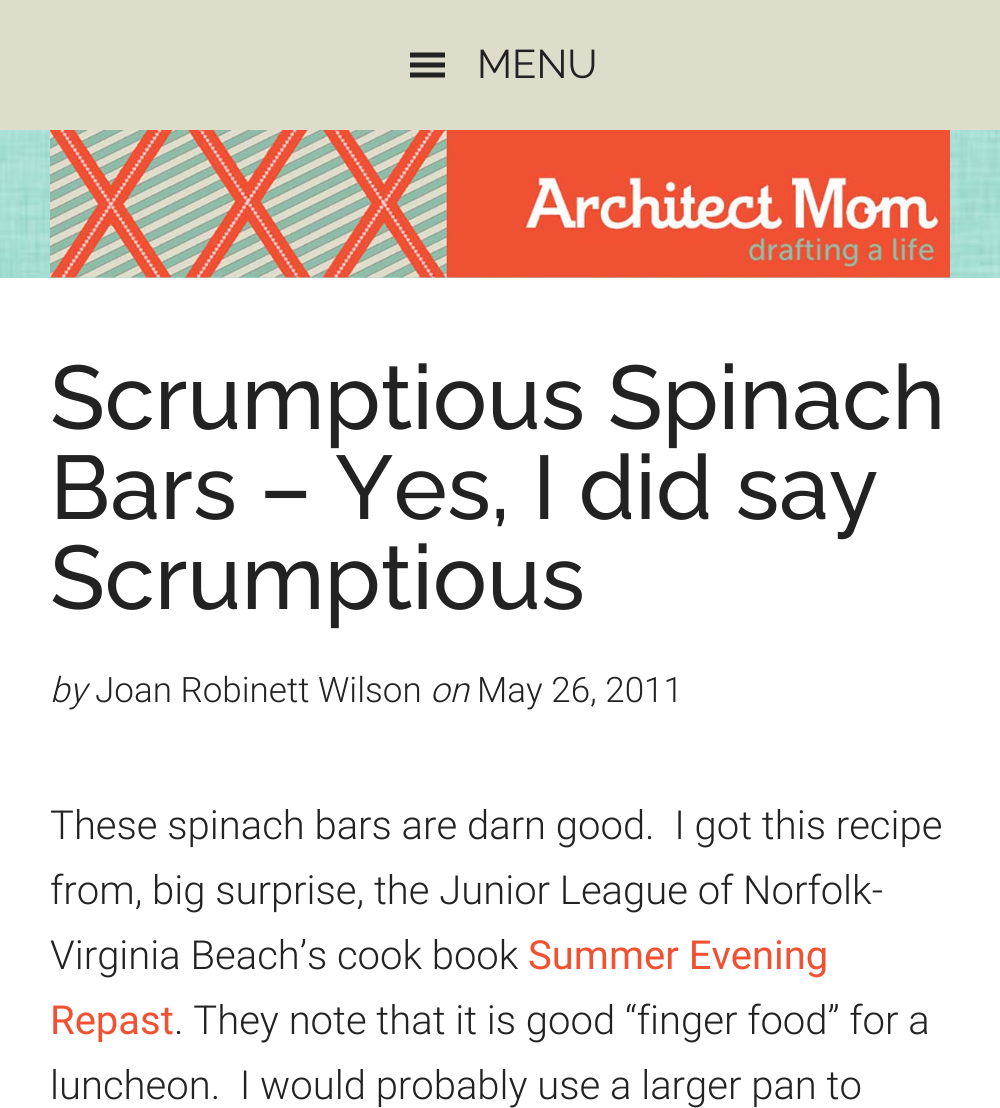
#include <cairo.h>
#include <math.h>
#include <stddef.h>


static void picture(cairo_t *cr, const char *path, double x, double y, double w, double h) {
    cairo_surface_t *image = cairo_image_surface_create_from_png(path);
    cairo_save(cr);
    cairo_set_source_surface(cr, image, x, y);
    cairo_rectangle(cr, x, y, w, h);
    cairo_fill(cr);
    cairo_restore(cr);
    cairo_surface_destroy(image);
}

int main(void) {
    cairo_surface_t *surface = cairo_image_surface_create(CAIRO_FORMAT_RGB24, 1000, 1108);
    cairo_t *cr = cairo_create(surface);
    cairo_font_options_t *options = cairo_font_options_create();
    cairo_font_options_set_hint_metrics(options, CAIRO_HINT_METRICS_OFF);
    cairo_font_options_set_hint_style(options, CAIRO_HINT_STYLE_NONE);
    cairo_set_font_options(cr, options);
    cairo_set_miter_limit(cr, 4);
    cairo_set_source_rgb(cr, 1, 1, 1);
    cairo_paint(cr);
    picture(cr, "img1.png", 0, 130, 1000, 148);
    cairo_set_source_rgb(cr, 0.871, 0.867, 0.796);
    cairo_rectangle(cr, 0, 0, 1000, 130);
    cairo_fill(cr);
    cairo_set_source_rgb(cr, 0.133, 0.133, 0.133);
    cairo_new_path(cr);
    cairo_move_to(cr, 410, 77.5);
    cairo_line_to(cr, 445, 77.5);
    cairo_line_to(cr, 445, 72.5);
    cairo_line_to(cr, 410, 72.5);
    cairo_close_path(cr);
    cairo_move_to(cr, 410, 52.5);
    cairo_line_to(cr, 410, 57.5);
    cairo_line_to(cr, 445, 57.5);
    cairo_line_to(cr, 445, 52.5);
    cairo_close_path(cr);
    cairo_move_to(cr, 410, 67.5);
    cairo_line_to(cr, 445, 67.5);
    cairo_line_to(cr, 445, 62.5);
    cairo_line_to(cr, 410, 62.5);
    cairo_close_path(cr);
    cairo_fill(cr);
    cairo_select_font_face(cr, "Raleway", CAIRO_FONT_SLANT_NORMAL, CAIRO_FONT_WEIGHT_NORMAL);
    cairo_set_font_size(cr, 40);
    cairo_move_to(cr, 477, 78);
    cairo_show_text(cr, "MENU");
    picture(cr, "img2.png", 50, 130, 900, 148);
    cairo_select_font_face(cr, "Raleway Medium", CAIRO_FONT_SLANT_NORMAL, CAIRO_FONT_WEIGHT_NORMAL);
    cairo_set_font_size(cr, 90);
    cairo_move_to(cr, 50, 429);
    cairo_show_text(cr, "Scrumptious Spinach");
    cairo_move_to(cr, 50, 519);
    cairo_show_text(cr, "Bars – Yes, I did say");
    cairo_move_to(cr, 50, 609);
    cairo_show_text(cr, "Scrumptious");
    cairo_select_font_face(cr, "Roboto Light", CAIRO_FONT_SLANT_ITALIC, CAIRO_FONT_WEIGHT_NORMAL);
    cairo_set_font_size(cr, 35);
    cairo_move_to(cr, 50, 702);
    cairo_show_text(cr, "by");
    cairo_select_font_face(cr, "Roboto Light", CAIRO_FONT_SLANT_NORMAL, CAIRO_FONT_WEIGHT_NORMAL);
    cairo_move_to(cr, 95, 702);
    cairo_show_text(cr, "Joan Robinett Wilson");
    cairo_select_font_face(cr, "Roboto Light", CAIRO_FONT_SLANT_ITALIC, CAIRO_FONT_WEIGHT_NORMAL);
    cairo_move_to(cr, 430, 702);
    cairo_show_text(cr, "on");
    cairo_select_font_face(cr, "Roboto Light", CAIRO_FONT_SLANT_NORMAL, CAIRO_FONT_WEIGHT_NORMAL);
    cairo_move_to(cr, 477, 702);
    cairo_show_text(cr, "May 26, 2011");
    cairo_set_font_size(cr, 40);
    cairo_move_to(cr, 50, 839);
    cairo_show_text(cr, "These spinach bars are darn good.  I got this recipe");
    cairo_move_to(cr, 50, 904);
    cairo_show_text(cr, "from, big surprise, the Junior League of Norfolk-");
    cairo_move_to(cr, 50, 969);
    cairo_show_text(cr, "Virginia Beach’s cook book");
    cairo_select_font_face(cr, "Roboto", CAIRO_FONT_SLANT_NORMAL, CAIRO_FONT_WEIGHT_NORMAL);
    cairo_set_source_rgb(cr, 0.941, 0.318, 0.2);
    cairo_move_to(cr, 528, 969);
    cairo_show_text(cr, "Summer Evening");
    cairo_move_to(cr, 50, 1034);
    cairo_show_text(cr, "Repast");
    cairo_select_font_face(cr, "Roboto Light", CAIRO_FONT_SLANT_NORMAL, CAIRO_FONT_WEIGHT_NORMAL);
    cairo_set_source_rgb(cr, 0.133, 0.133, 0.133);
    cairo_move_to(cr, 174, 1034);
    cairo_show_text(cr, ". They note that it is good “finger food” for a");
    cairo_move_to(cr, 50, 1099);
    cairo_show_text(cr, "luncheon.  I would probably use a larger pan to");
    cairo_surface_write_to_png(surface, "page.png");
    cairo_font_options_destroy(options);
    cairo_destroy(cr);
    cairo_surface_destroy(surface);
    return 0;
}
